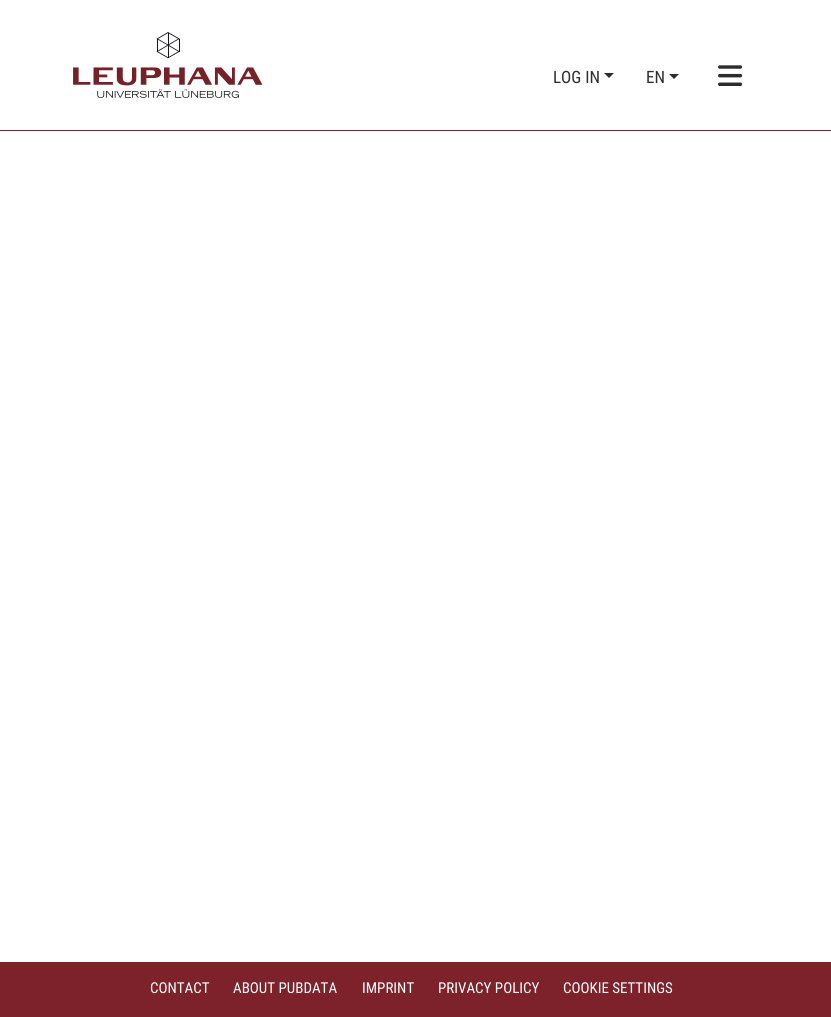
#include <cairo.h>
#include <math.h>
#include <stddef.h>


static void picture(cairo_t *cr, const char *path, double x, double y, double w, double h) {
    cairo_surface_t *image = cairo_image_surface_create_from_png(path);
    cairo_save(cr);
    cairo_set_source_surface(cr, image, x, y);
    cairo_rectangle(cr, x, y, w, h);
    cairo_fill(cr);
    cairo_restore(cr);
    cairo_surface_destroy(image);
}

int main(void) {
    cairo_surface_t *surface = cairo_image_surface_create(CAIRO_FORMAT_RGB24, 831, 1017);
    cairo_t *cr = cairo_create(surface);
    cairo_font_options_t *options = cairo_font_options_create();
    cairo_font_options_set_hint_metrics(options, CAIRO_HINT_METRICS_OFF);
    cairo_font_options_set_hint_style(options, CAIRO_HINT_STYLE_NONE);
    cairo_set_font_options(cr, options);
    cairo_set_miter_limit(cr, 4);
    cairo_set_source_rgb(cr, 1, 1, 1);
    cairo_paint(cr);
    cairo_set_source_rgb(cr, 0.49, 0.129, 0.165);
    cairo_rectangle(cr, 0, 130, 831, 1);
    cairo_fill(cr);
    picture(cr, "img1.png", 73, 32, 190, 66);
    cairo_select_font_face(cr, "Roboto Condensed", CAIRO_FONT_SLANT_NORMAL, CAIRO_FONT_WEIGHT_NORMAL);
    cairo_set_font_size(cr, 17);
    cairo_set_source_rgb(cr, 0.176, 0.176, 0.176);
    cairo_move_to(cr, 553, 83);
    cairo_show_text(cr, "LOG IN");
    cairo_new_path(cr);
    cairo_move_to(cr, 604, 73);
    cairo_line_to(cr, 614, 73);
    cairo_line_to(cr, 609, 78);
    cairo_close_path(cr);
    cairo_fill(cr);
    cairo_move_to(cr, 646, 83);
    cairo_show_text(cr, "EN");
    cairo_new_path(cr);
    cairo_move_to(cr, 669, 74);
    cairo_line_to(cr, 679, 74);
    cairo_line_to(cr, 674, 79);
    cairo_close_path(cr);
    cairo_fill(cr);
    picture(cr, "img2.png", 718, 65, 25, 21);
    cairo_set_source_rgb(cr, 0.49, 0.129, 0.165);
    cairo_rectangle(cr, 0, 962, 831, 55);
    cairo_fill(cr);
    cairo_set_font_size(cr, 15);
    cairo_set_source_rgb(cr, 1, 1, 1);
    cairo_move_to(cr, 150, 993);
    cairo_show_text(cr, "CONTACT");
    cairo_move_to(cr, 233, 993);
    cairo_show_text(cr, "ABOUT PUBDATA");
    cairo_move_to(cr, 362, 993);
    cairo_show_text(cr, "IMPRINT");
    cairo_move_to(cr, 438, 993);
    cairo_show_text(cr, "PRIVACY POLICY");
    cairo_move_to(cr, 563, 993);
    cairo_show_text(cr, "COOKIE SETTINGS");
    cairo_surface_write_to_png(surface, "page.png");
    cairo_font_options_destroy(options);
    cairo_destroy(cr);
    cairo_surface_destroy(surface);
    return 0;
}
